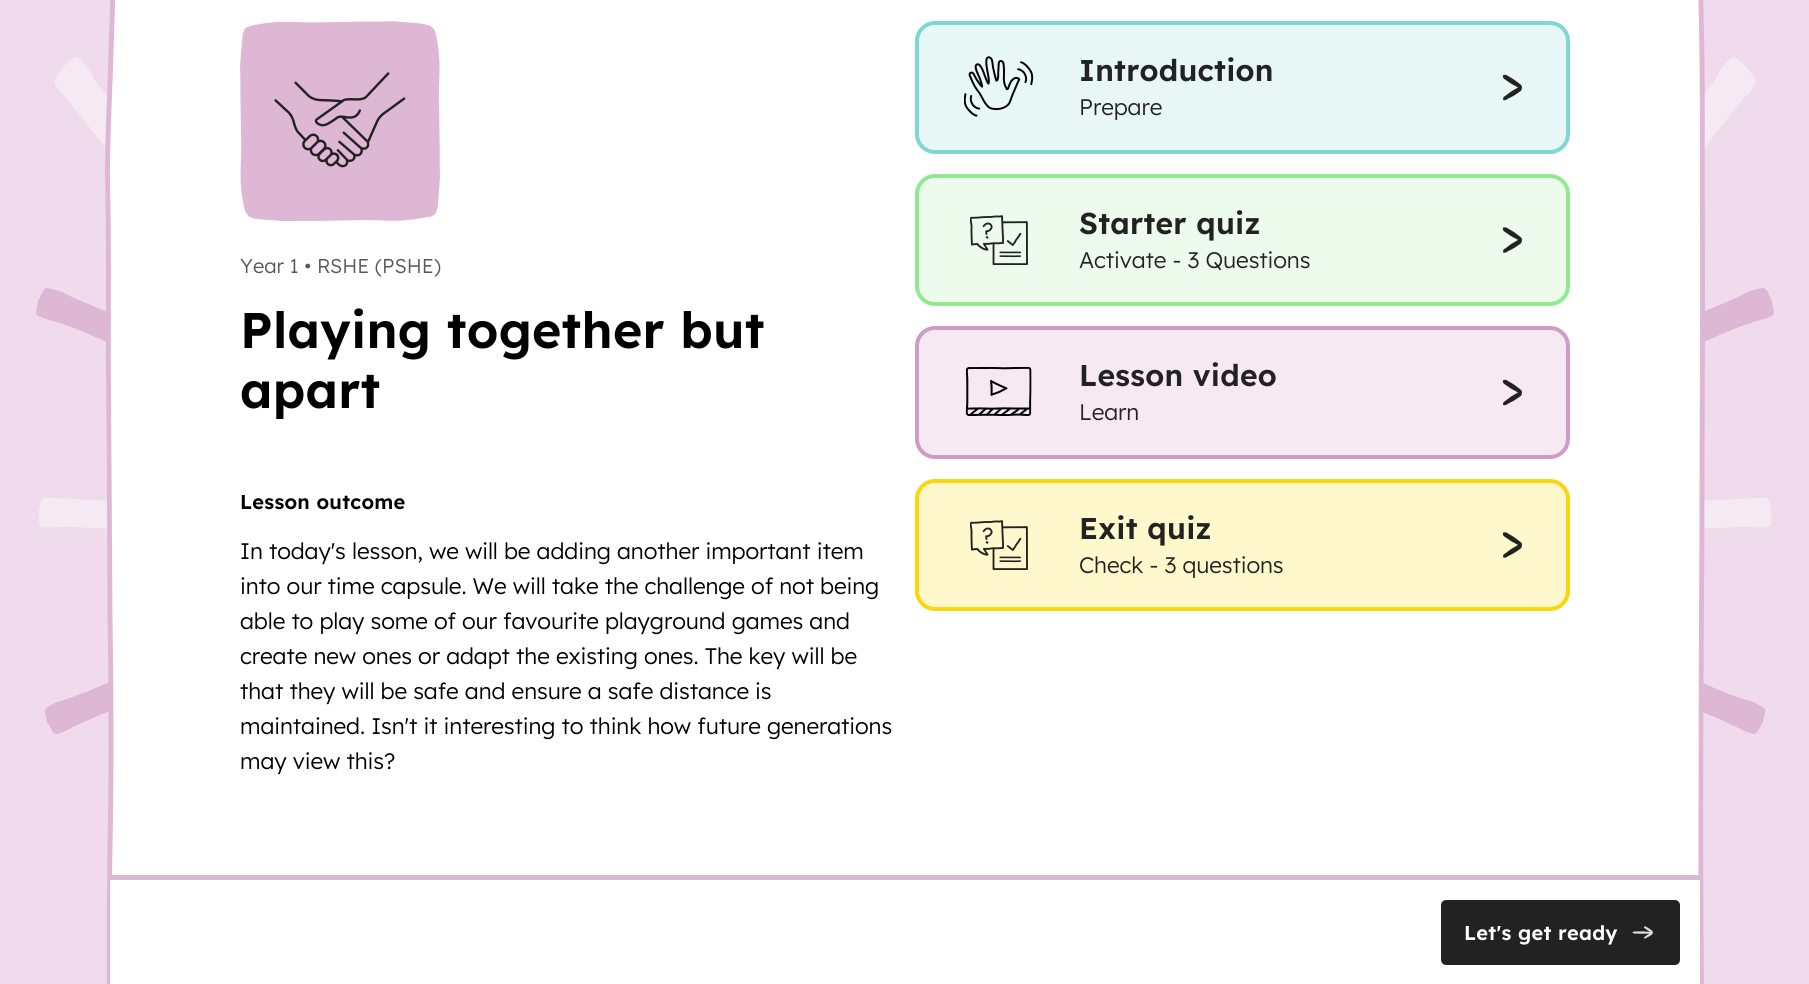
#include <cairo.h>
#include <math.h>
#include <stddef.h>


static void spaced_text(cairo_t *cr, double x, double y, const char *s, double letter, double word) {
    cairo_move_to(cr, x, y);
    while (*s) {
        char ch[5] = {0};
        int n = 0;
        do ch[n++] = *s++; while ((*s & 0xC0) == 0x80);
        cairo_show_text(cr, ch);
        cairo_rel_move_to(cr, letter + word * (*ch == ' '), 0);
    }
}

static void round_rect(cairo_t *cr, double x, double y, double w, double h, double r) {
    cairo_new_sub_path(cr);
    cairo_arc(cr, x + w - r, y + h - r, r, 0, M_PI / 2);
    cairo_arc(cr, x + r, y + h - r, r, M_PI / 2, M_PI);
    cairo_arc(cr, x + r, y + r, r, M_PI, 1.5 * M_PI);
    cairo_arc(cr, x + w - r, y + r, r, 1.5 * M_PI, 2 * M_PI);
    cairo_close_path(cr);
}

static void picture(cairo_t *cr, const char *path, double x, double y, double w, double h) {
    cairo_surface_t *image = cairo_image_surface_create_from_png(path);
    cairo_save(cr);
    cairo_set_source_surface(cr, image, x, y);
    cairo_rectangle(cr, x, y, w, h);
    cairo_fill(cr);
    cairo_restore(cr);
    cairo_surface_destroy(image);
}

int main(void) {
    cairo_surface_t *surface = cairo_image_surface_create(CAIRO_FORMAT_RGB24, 1809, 984);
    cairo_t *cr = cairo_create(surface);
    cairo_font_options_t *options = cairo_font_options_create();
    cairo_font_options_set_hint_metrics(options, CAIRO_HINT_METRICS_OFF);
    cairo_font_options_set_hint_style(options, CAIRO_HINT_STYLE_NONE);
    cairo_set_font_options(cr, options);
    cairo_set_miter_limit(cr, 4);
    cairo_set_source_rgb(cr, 0.937, 0.859, 0.918);
    cairo_paint(cr);
    picture(cr, "img1.png", 36, 57, 1738, 677);
    picture(cr, "img2.png", 105, 0, 1600, 984);
    picture(cr, "img3.png", 240, 21, 200, 200);
    picture(cr, "img4.png", 274, 72, 132, 96);
    cairo_select_font_face(cr, "Lexend Light", CAIRO_FONT_SLANT_NORMAL, CAIRO_FONT_WEIGHT_NORMAL);
    cairo_set_font_size(cr, 20);
    cairo_set_source_rgb(cr, 0.341, 0.341, 0.341);
    cairo_move_to(cr, 240, 273);
    cairo_show_text(cr, "Year 1 • RSHE (PSHE)");
    cairo_select_font_face(cr, "Lexend SemiBold", CAIRO_FONT_SLANT_NORMAL, CAIRO_FONT_WEIGHT_NORMAL);
    cairo_set_font_size(cr, 50);
    cairo_set_source_rgb(cr, 0, 0, 0);
    spaced_text(cr, 240, 348, "Playing together but", 0.25, 0);
    spaced_text(cr, 240, 408, "apart", 0.25, 0);
    cairo_set_font_size(cr, 20);
    spaced_text(cr, 240, 509, "Lesson outcome", 0.25, 0);
    cairo_select_font_face(cr, "Lexend Light", CAIRO_FONT_SLANT_NORMAL, CAIRO_FONT_WEIGHT_NORMAL);
    cairo_set_font_size(cr, 22.5);
    spaced_text(cr, 240, 559, "In today's lesson, we will be adding another important item", -0.1, 0);
    spaced_text(cr, 240, 594, "into our time capsule. We will take the challenge of not being", -0.1, 0);
    spaced_text(cr, 240, 629, "able to play some of our favourite playground games and", -0.1, 0);
    spaced_text(cr, 240, 664, "create new ones or adapt the existing ones. The key will be", -0.1, 0);
    spaced_text(cr, 240, 699, "that they will be safe and ensure a safe distance is", -0.1, 0);
    spaced_text(cr, 240, 734, "maintained. Isn't it interesting to think how future generations", -0.1, 0);
    spaced_text(cr, 240, 769, "may view this?", -0.1, 0);
    cairo_set_source_rgb(cr, 0.906, 0.965, 0.961);
    round_rect(cr, 917, 23, 651, 129, 18);
    cairo_fill_preserve(cr);
    cairo_set_source_rgb(cr, 0.486, 0.847, 0.816);
    cairo_set_line_width(cr, 4);
    cairo_stroke(cr);
    picture(cr, "img5.png", 964, 56, 70, 61);
    cairo_select_font_face(cr, "Lexend SemiBold", CAIRO_FONT_SLANT_NORMAL, CAIRO_FONT_WEIGHT_NORMAL);
    cairo_set_font_size(cr, 30);
    cairo_set_source_rgb(cr, 0.133, 0.133, 0.133);
    spaced_text(cr, 1079, 81, "Introduction", 0.25, 0);
    cairo_select_font_face(cr, "Lexend Light", CAIRO_FONT_SLANT_NORMAL, CAIRO_FONT_WEIGHT_NORMAL);
    cairo_set_font_size(cr, 22.5);
    spaced_text(cr, 1079, 115, "Prepare", -0.1, 0);
    picture(cr, "img6.png", 1502, 74, 20, 27);
    cairo_set_source_rgb(cr, 0.922, 0.984, 0.922);
    round_rect(cr, 917, 176, 651, 128, 18);
    cairo_fill_preserve(cr);
    cairo_set_source_rgb(cr, 0.576, 0.91, 0.573);
    cairo_stroke(cr);
    picture(cr, "img7.png", 970, 215, 58, 50);
    cairo_select_font_face(cr, "Lexend SemiBold", CAIRO_FONT_SLANT_NORMAL, CAIRO_FONT_WEIGHT_NORMAL);
    cairo_set_font_size(cr, 30);
    cairo_set_source_rgb(cr, 0.133, 0.133, 0.133);
    spaced_text(cr, 1079, 234, "Starter quiz", 0.25, 0);
    cairo_select_font_face(cr, "Lexend Light", CAIRO_FONT_SLANT_NORMAL, CAIRO_FONT_WEIGHT_NORMAL);
    cairo_set_font_size(cr, 22.5);
    spaced_text(cr, 1079, 268, "Activate - 3 Questions", -0.1, 0);
    picture(cr, "img8.png", 1502, 227, 20, 26);
    cairo_set_source_rgb(cr, 0.961, 0.914, 0.949);
    round_rect(cr, 917, 328, 651, 129, 18);
    cairo_fill_preserve(cr);
    cairo_set_source_rgb(cr, 0.812, 0.612, 0.765);
    cairo_stroke(cr);
    picture(cr, "img9.png", 965, 366, 67, 50);
    cairo_select_font_face(cr, "Lexend SemiBold", CAIRO_FONT_SLANT_NORMAL, CAIRO_FONT_WEIGHT_NORMAL);
    cairo_set_font_size(cr, 30);
    cairo_set_source_rgb(cr, 0.133, 0.133, 0.133);
    spaced_text(cr, 1079, 386, "Lesson video", 0.25, 0);
    cairo_select_font_face(cr, "Lexend Light", CAIRO_FONT_SLANT_NORMAL, CAIRO_FONT_WEIGHT_NORMAL);
    cairo_set_font_size(cr, 22.5);
    spaced_text(cr, 1079, 420, "Learn", -0.1, 0);
    picture(cr, "img10.png", 1502, 379, 20, 27);
    cairo_set_source_rgb(cr, 1, 0.969, 0.8);
    round_rect(cr, 917, 481, 651, 128, 18);
    cairo_fill_preserve(cr);
    cairo_set_source_rgb(cr, 0.984, 0.839, 0.055);
    cairo_stroke(cr);
    picture(cr, "img11.png", 970, 520, 58, 50);
    cairo_select_font_face(cr, "Lexend SemiBold", CAIRO_FONT_SLANT_NORMAL, CAIRO_FONT_WEIGHT_NORMAL);
    cairo_set_font_size(cr, 30);
    cairo_set_source_rgb(cr, 0.133, 0.133, 0.133);
    spaced_text(cr, 1079, 539, "Exit quiz", 0.25, 0);
    cairo_select_font_face(cr, "Lexend Light", CAIRO_FONT_SLANT_NORMAL, CAIRO_FONT_WEIGHT_NORMAL);
    cairo_set_font_size(cr, 22.5);
    spaced_text(cr, 1079, 573, "Check - 3 questions", -0.1, 0);
    picture(cr, "img12.png", 1502, 532, 20, 26);
    cairo_set_source_rgb(cr, 1, 1, 1);
    cairo_rectangle(cr, 110, 880, 1590, 104);
    cairo_fill(cr);
    cairo_set_source_rgb(cr, 0.871, 0.718, 0.835);
    cairo_rectangle(cr, 110, 875, 1590, 5);
    cairo_fill(cr);
    cairo_set_source_rgb(cr, 0.133, 0.133, 0.133);
    round_rect(cr, 1442.5, 901.5, 236, 62, 3.5);
    cairo_fill_preserve(cr);
    cairo_set_line_width(cr, 3);
    cairo_stroke(cr);
    cairo_select_font_face(cr, "Lexend SemiBold", CAIRO_FONT_SLANT_NORMAL, CAIRO_FONT_WEIGHT_NORMAL);
    cairo_set_font_size(cr, 20);
    cairo_set_source_rgb(cr, 1, 1, 1);
    spaced_text(cr, 1464, 940, "Let's get ready", 0.25, 0);
    picture(cr, "img13.png", 1632, 926, 21, 13);
    cairo_surface_write_to_png(surface, "page.png");
    cairo_font_options_destroy(options);
    cairo_destroy(cr);
    cairo_surface_destroy(surface);
    return 0;
}
